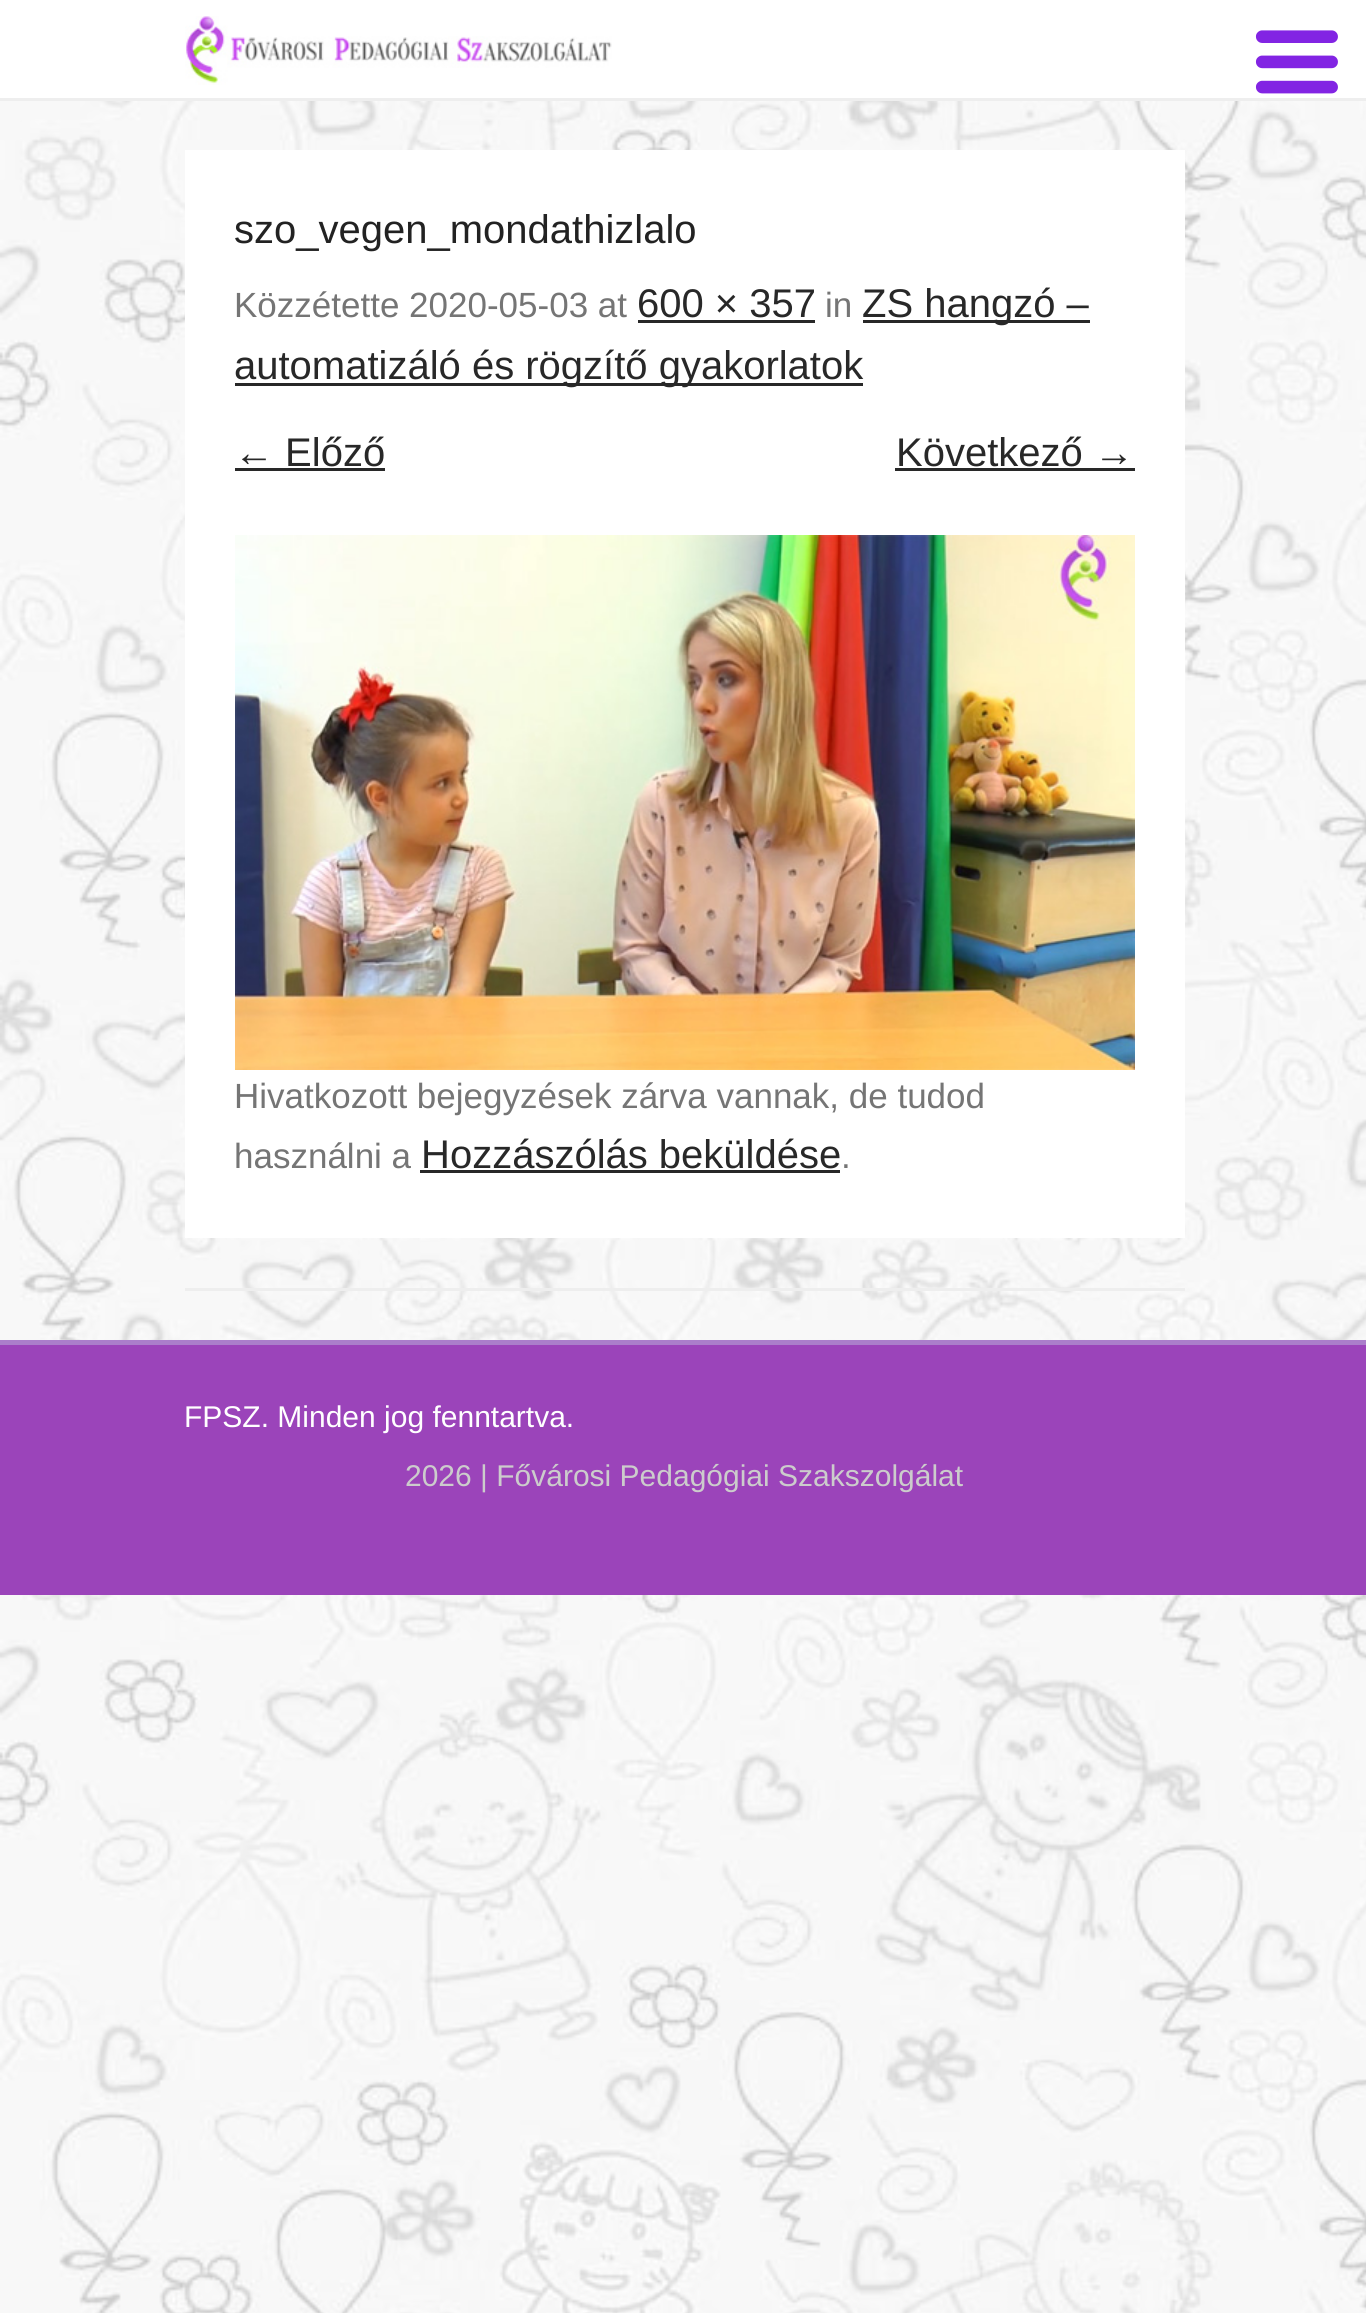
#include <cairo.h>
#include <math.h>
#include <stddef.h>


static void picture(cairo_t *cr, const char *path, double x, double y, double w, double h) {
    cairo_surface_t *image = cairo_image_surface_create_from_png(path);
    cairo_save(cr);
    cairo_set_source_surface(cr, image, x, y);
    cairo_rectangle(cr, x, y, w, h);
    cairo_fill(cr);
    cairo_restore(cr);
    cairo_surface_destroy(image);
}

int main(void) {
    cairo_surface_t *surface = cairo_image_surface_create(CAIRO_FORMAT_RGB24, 1366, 2313);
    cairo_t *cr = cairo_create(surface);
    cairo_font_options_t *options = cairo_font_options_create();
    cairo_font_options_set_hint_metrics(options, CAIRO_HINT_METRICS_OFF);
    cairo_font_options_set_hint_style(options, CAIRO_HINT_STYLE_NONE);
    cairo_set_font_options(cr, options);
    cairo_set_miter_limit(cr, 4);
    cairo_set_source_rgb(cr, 1, 1, 1);
    cairo_paint(cr);
    picture(cr, "img1.png", 0, 101, 1366, 2212);
    picture(cr, "img2.png", 1255, 30, 83, 64);
    cairo_set_source_rgb(cr, 0.933, 0.933, 0.933);
    cairo_rectangle(cr, 0, 98, 1366, 3);
    cairo_fill(cr);
    picture(cr, "img3.png", 185, 16, 427, 69);
    cairo_rectangle(cr, 185, 1288, 1000, 3);
    cairo_fill(cr);
    cairo_set_source_rgb(cr, 1, 1, 1);
    cairo_rectangle(cr, 185, 150, 1000, 1088);
    cairo_fill(cr);
    cairo_select_font_face(cr, "Liberation Sans", CAIRO_FONT_SLANT_NORMAL, CAIRO_FONT_WEIGHT_NORMAL);
    cairo_set_font_size(cr, 40);
    cairo_set_source_rgb(cr, 0.133, 0.133, 0.133);
    cairo_move_to(cr, 234, 243);
    cairo_show_text(cr, "szo_vegen_mondathizlalo");
    cairo_set_font_size(cr, 35);
    cairo_set_source_rgb(cr, 0.459, 0.459, 0.459);
    cairo_move_to(cr, 234, 317);
    cairo_show_text(cr, "Közzétette 2020-05-03 at");
    cairo_set_font_size(cr, 40);
    cairo_set_source_rgb(cr, 0.157, 0.157, 0.157);
    cairo_move_to(cr, 637, 317);
    cairo_show_text(cr, "600 × 357");
    cairo_rectangle(cr, 638, 320, 177, 3);
    cairo_fill(cr);
    cairo_set_font_size(cr, 35);
    cairo_set_source_rgb(cr, 0.459, 0.459, 0.459);
    cairo_move_to(cr, 825, 317);
    cairo_show_text(cr, "in");
    cairo_set_source_rgb(cr, 0.157, 0.157, 0.157);
    cairo_rectangle(cr, 863, 320, 227, 3);
    cairo_fill(cr);
    cairo_set_font_size(cr, 40);
    cairo_move_to(cr, 862, 317);
    cairo_show_text(cr, "ZS hangzó –");
    cairo_rectangle(cr, 235, 383, 628, 3);
    cairo_fill(cr);
    cairo_move_to(cr, 234, 379);
    cairo_show_text(cr, "automatizáló és rögzítő gyakorlatok");
    cairo_move_to(cr, 234, 466);
    cairo_show_text(cr, "← Előző");
    cairo_rectangle(cr, 235, 468, 150, 3);
    cairo_fill(cr);
    cairo_move_to(cr, 896, 466);
    cairo_show_text(cr, "Következő →");
    cairo_rectangle(cr, 895, 468, 240, 3);
    cairo_fill(cr);
    picture(cr, "img4.png", 235, 535, 900, 535);
    cairo_set_font_size(cr, 35);
    cairo_set_source_rgb(cr, 0.459, 0.459, 0.459);
    cairo_move_to(cr, 234, 1108);
    cairo_show_text(cr, "Hivatkozott bejegyzések zárva vannak, de tudod");
    cairo_move_to(cr, 234, 1168);
    cairo_show_text(cr, "használni a");
    cairo_set_font_size(cr, 40);
    cairo_set_source_rgb(cr, 0.157, 0.157, 0.157);
    cairo_move_to(cr, 421, 1168);
    cairo_show_text(cr, "Hozzászólás beküldése");
    cairo_rectangle(cr, 420, 1170, 420, 3);
    cairo_fill(cr);
    cairo_set_font_size(cr, 35);
    cairo_set_source_rgb(cr, 0.459, 0.459, 0.459);
    cairo_move_to(cr, 841, 1168);
    cairo_show_text(cr, ".");
    cairo_set_source_rgb(cr, 0.671, 0.494, 0.796);
    cairo_rectangle(cr, 0, 1340, 1366, 5);
    cairo_fill(cr);
    cairo_set_source_rgb(cr, 0.608, 0.267, 0.729);
    cairo_rectangle(cr, 0, 1345, 1366, 250);
    cairo_fill(cr);
    cairo_set_font_size(cr, 30);
    cairo_set_source_rgb(cr, 1, 1, 1);
    cairo_move_to(cr, 184, 1427);
    cairo_show_text(cr, "FPSZ. Minden jog fenntartva.");
    cairo_set_source_rgb(cr, 0.8, 0.8, 0.8);
    cairo_move_to(cr, 405, 1486);
    cairo_show_text(cr, "2026 | Fővárosi Pedagógiai Szakszolgálat");
    cairo_surface_write_to_png(surface, "page.png");
    cairo_font_options_destroy(options);
    cairo_destroy(cr);
    cairo_surface_destroy(surface);
    return 0;
}
